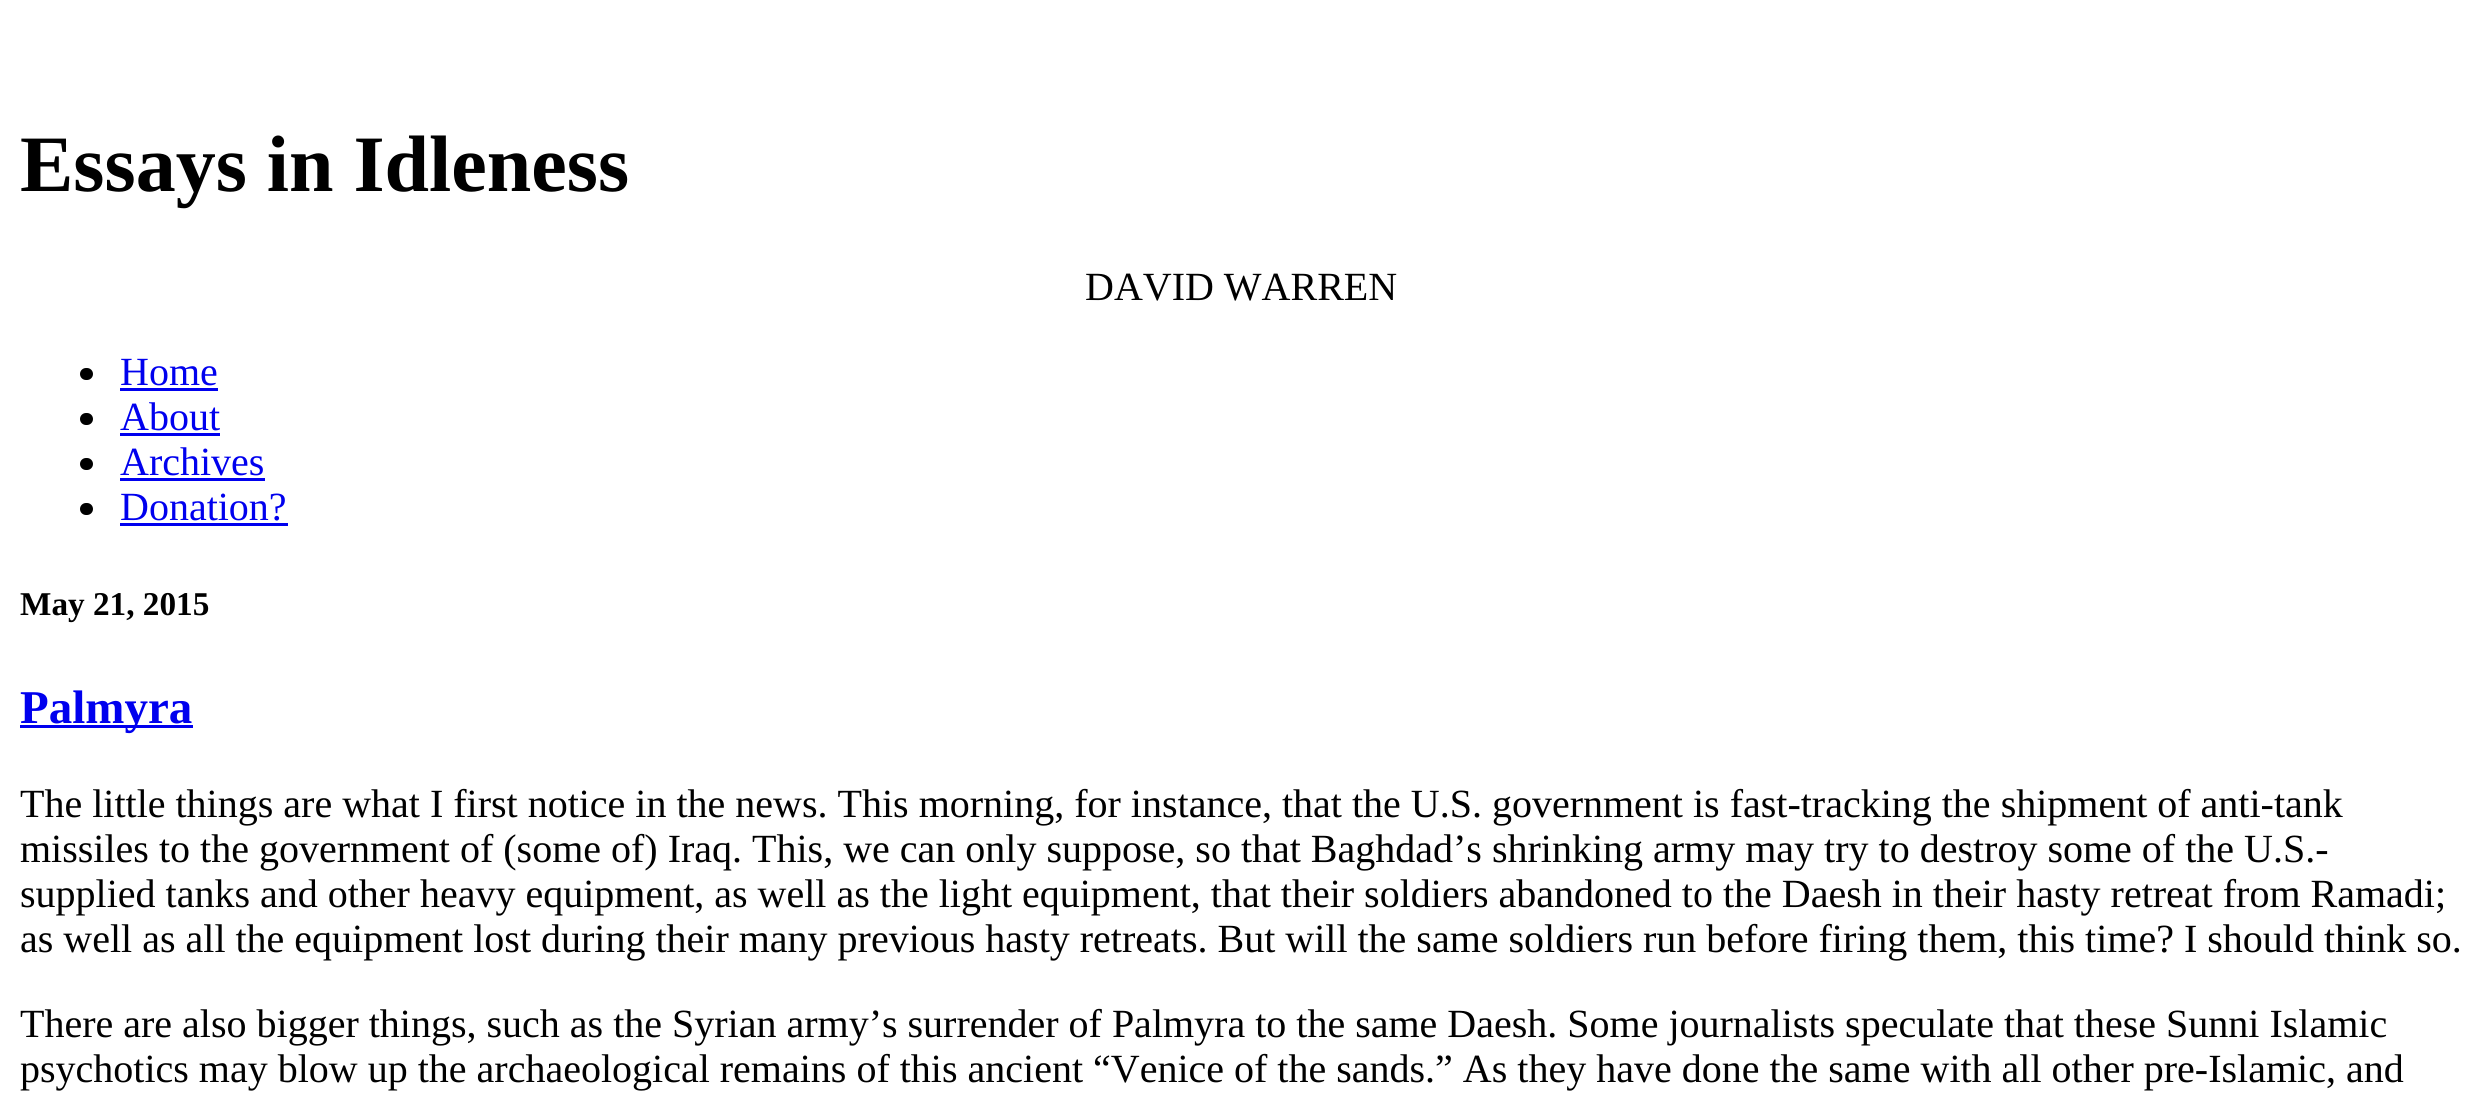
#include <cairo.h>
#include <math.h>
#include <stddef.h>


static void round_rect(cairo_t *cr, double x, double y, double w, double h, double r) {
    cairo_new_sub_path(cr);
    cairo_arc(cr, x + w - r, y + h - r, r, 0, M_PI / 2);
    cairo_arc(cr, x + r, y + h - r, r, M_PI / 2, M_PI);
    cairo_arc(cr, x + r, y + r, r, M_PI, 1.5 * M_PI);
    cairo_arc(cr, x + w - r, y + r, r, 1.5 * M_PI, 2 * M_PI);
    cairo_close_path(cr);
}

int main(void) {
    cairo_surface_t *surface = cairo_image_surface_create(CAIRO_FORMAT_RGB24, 2482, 1102);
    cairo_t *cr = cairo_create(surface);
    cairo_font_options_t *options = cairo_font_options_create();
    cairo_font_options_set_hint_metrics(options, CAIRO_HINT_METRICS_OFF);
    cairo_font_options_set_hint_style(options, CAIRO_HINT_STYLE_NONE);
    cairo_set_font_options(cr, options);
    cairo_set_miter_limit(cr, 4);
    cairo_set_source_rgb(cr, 1, 1, 1);
    cairo_paint(cr);
    cairo_select_font_face(cr, "Liberation Serif", CAIRO_FONT_SLANT_NORMAL, CAIRO_FONT_WEIGHT_BOLD);
    cairo_set_font_size(cr, 80);
    cairo_set_source_rgb(cr, 0, 0, 0);
    cairo_move_to(cr, 20, 191);
    cairo_show_text(cr, "Essays in Idleness");
    cairo_select_font_face(cr, "Liberation Serif", CAIRO_FONT_SLANT_NORMAL, CAIRO_FONT_WEIGHT_NORMAL);
    cairo_set_font_size(cr, 40);
    cairo_move_to(cr, 1085, 300);
    cairo_show_text(cr, "DAVID WARREN");
    round_rect(cr, 80, 368, 13, 12, 6);
    cairo_fill(cr);
    cairo_set_source_rgb(cr, 0, 0, 0.933);
    cairo_move_to(cr, 120, 385);
    cairo_show_text(cr, "Home");
    cairo_rectangle(cr, 120, 388, 98, 3);
    cairo_fill(cr);
    cairo_set_source_rgb(cr, 0, 0, 0);
    round_rect(cr, 80, 413, 13, 12, 6);
    cairo_fill(cr);
    cairo_set_source_rgb(cr, 0, 0, 0.933);
    cairo_move_to(cr, 120, 430);
    cairo_show_text(cr, "About");
    cairo_rectangle(cr, 120, 433, 100, 3);
    cairo_fill(cr);
    cairo_set_source_rgb(cr, 0, 0, 0);
    round_rect(cr, 80, 458, 13, 12, 6);
    cairo_fill(cr);
    cairo_set_source_rgb(cr, 0, 0, 0.933);
    cairo_move_to(cr, 120, 475);
    cairo_show_text(cr, "Archives");
    cairo_rectangle(cr, 120, 478, 145, 3);
    cairo_fill(cr);
    cairo_set_source_rgb(cr, 0, 0, 0);
    round_rect(cr, 80, 503, 13, 12, 6);
    cairo_fill(cr);
    cairo_set_source_rgb(cr, 0, 0, 0.933);
    cairo_move_to(cr, 120, 520);
    cairo_show_text(cr, "Donation?");
    cairo_rectangle(cr, 120, 523, 168, 3);
    cairo_fill(cr);
    cairo_select_font_face(cr, "Liberation Serif", CAIRO_FONT_SLANT_NORMAL, CAIRO_FONT_WEIGHT_BOLD);
    cairo_set_font_size(cr, 33.25);
    cairo_set_source_rgb(cr, 0, 0, 0);
    cairo_move_to(cr, 20, 615);
    cairo_show_text(cr, "May 21, 2015");
    cairo_set_source_rgb(cr, 0, 0, 0.933);
    cairo_rectangle(cr, 20, 725, 173, 3);
    cairo_fill(cr);
    cairo_set_font_size(cr, 47);
    cairo_move_to(cr, 20, 723);
    cairo_show_text(cr, "Palmyra");
    cairo_select_font_face(cr, "Liberation Serif", CAIRO_FONT_SLANT_NORMAL, CAIRO_FONT_WEIGHT_NORMAL);
    cairo_set_font_size(cr, 40);
    cairo_set_source_rgb(cr, 0, 0, 0);
    cairo_move_to(cr, 20, 817);
    cairo_show_text(cr, "The little things are what I first notice in the news. This morning, for instance, that the U.S. government is fast-tracking the shipment of anti-tank");
    cairo_move_to(cr, 20, 862);
    cairo_show_text(cr, "missiles to the government of (some of) Iraq. This, we can only suppose, so that Baghdad’s shrinking army may try to destroy some of the U.S.-");
    cairo_move_to(cr, 20, 907);
    cairo_show_text(cr, "supplied tanks and other heavy equipment, as well as the light equipment, that their soldiers abandoned to the Daesh in their hasty retreat from Ramadi;");
    cairo_move_to(cr, 20, 952);
    cairo_show_text(cr, "as well as all the equipment lost during their many previous hasty retreats. But will the same soldiers run before firing them, this time? I should think so.");
    cairo_move_to(cr, 20, 1037);
    cairo_show_text(cr, "There are also bigger things, such as the Syrian army’s surrender of Palmyra to the same Daesh. Some journalists speculate that these Sunni Islamic");
    cairo_move_to(cr, 20, 1082);
    cairo_show_text(cr, "psychotics may blow up the archaeological remains of this ancient “Venice of the sands.” As they have done the same with all other pre-Islamic, and");
    cairo_surface_write_to_png(surface, "page.png");
    cairo_font_options_destroy(options);
    cairo_destroy(cr);
    cairo_surface_destroy(surface);
    return 0;
}
